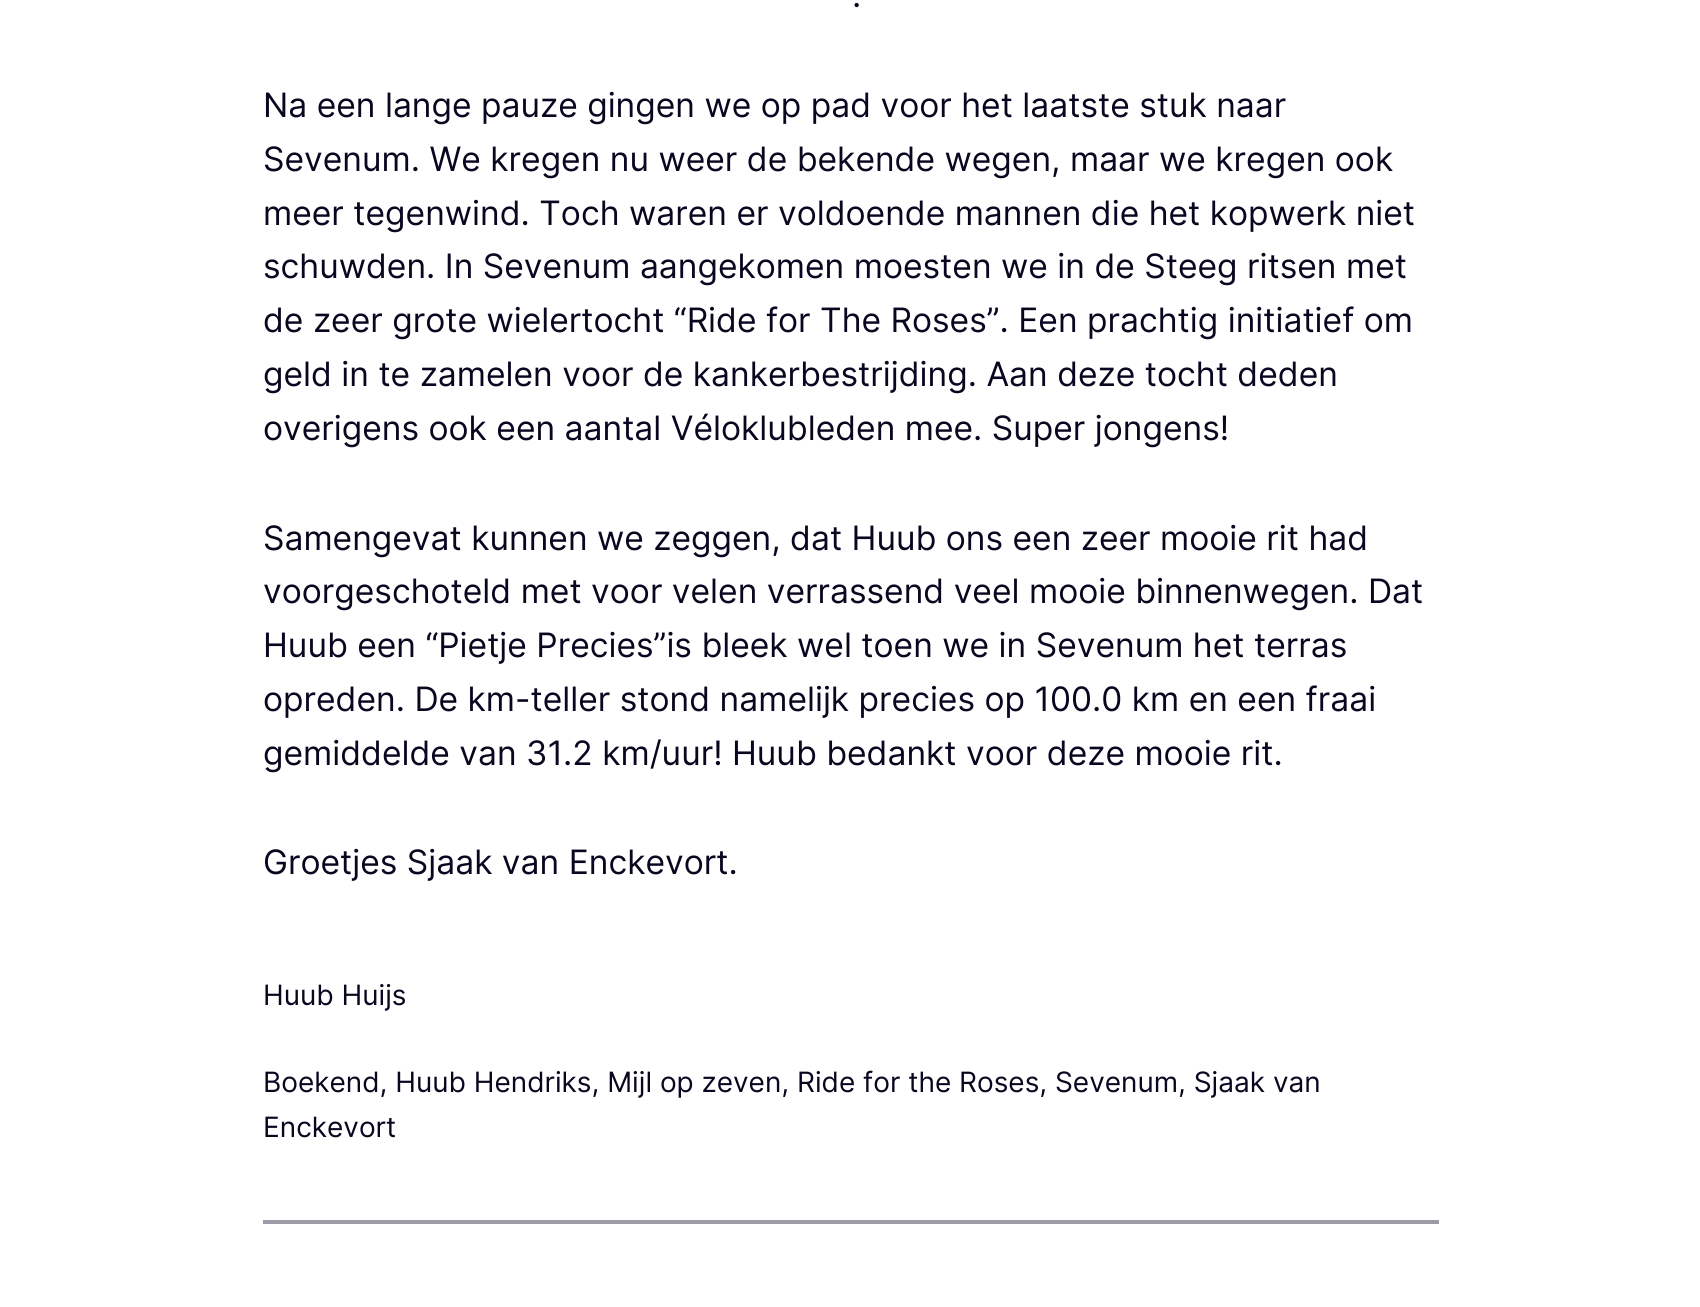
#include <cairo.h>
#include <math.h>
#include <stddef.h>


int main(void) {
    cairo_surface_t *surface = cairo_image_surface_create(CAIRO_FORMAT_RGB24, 1700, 1307);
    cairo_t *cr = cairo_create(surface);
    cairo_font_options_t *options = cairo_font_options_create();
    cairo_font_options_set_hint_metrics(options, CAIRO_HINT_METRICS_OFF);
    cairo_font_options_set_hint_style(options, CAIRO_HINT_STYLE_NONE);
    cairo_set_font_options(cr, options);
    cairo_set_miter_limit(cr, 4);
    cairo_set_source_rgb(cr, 1, 1, 1);
    cairo_paint(cr);
    cairo_select_font_face(cr, "Inter", CAIRO_FONT_SLANT_NORMAL, CAIRO_FONT_WEIGHT_NORMAL);
    cairo_set_font_size(cr, 33.6);
    cairo_set_source_rgb(cr, 0.043, 0.024, 0.125);
    cairo_move_to(cr, 852, 7);
    cairo_show_text(cr, ".");
    cairo_move_to(cr, 263, 117);
    cairo_show_text(cr, "Na een lange pauze gingen we op pad voor het laatste stuk naar");
    cairo_move_to(cr, 263, 171);
    cairo_show_text(cr, "Sevenum. We kregen nu weer de bekende wegen, maar we kregen ook");
    cairo_move_to(cr, 263, 225);
    cairo_show_text(cr, "meer tegenwind. Toch waren er voldoende mannen die het kopwerk niet");
    cairo_move_to(cr, 263, 278);
    cairo_show_text(cr, "schuwden. In Sevenum aangekomen moesten we in de Steeg ritsen met");
    cairo_move_to(cr, 263, 332);
    cairo_show_text(cr, "de zeer grote wielertocht “Ride for The Roses”. Een prachtig initiatief om");
    cairo_move_to(cr, 263, 386);
    cairo_show_text(cr, "geld in te zamelen voor de kankerbestrijding. Aan deze tocht deden");
    cairo_move_to(cr, 263, 440);
    cairo_show_text(cr, "overigens ook een aantal Véloklubleden mee. Super jongens!");
    cairo_move_to(cr, 263, 550);
    cairo_show_text(cr, "Samengevat kunnen we zeggen, dat Huub ons een zeer mooie rit had");
    cairo_move_to(cr, 263, 603);
    cairo_show_text(cr, "voorgeschoteld met voor velen verrassend veel mooie binnenwegen. Dat");
    cairo_move_to(cr, 263, 657);
    cairo_show_text(cr, "Huub een “Pietje Precies”is bleek wel toen we in Sevenum het terras");
    cairo_move_to(cr, 263, 711);
    cairo_show_text(cr, "opreden. De km-teller stond namelijk precies op 100.0 km en een fraai");
    cairo_move_to(cr, 263, 765);
    cairo_show_text(cr, "gemiddelde van 31.2 km/uur! Huub bedankt voor deze mooie rit.");
    cairo_move_to(cr, 263, 874);
    cairo_show_text(cr, "Groetjes Sjaak van Enckevort.");
    cairo_set_font_size(cr, 28);
    cairo_move_to(cr, 263, 1005);
    cairo_show_text(cr, "Huub Huijs");
    cairo_move_to(cr, 263, 1092);
    cairo_show_text(cr, "Boekend, Huub Hendriks, Mijl op zeven, Ride for the Roses, Sevenum, Sjaak van");
    cairo_move_to(cr, 263, 1137);
    cairo_show_text(cr, "Enckevort");
    cairo_set_source_rgb(cr, 0.616, 0.608, 0.651);
    cairo_rectangle(cr, 263, 1220, 1176, 4);
    cairo_fill(cr);
    cairo_surface_write_to_png(surface, "page.png");
    cairo_font_options_destroy(options);
    cairo_destroy(cr);
    cairo_surface_destroy(surface);
    return 0;
}
